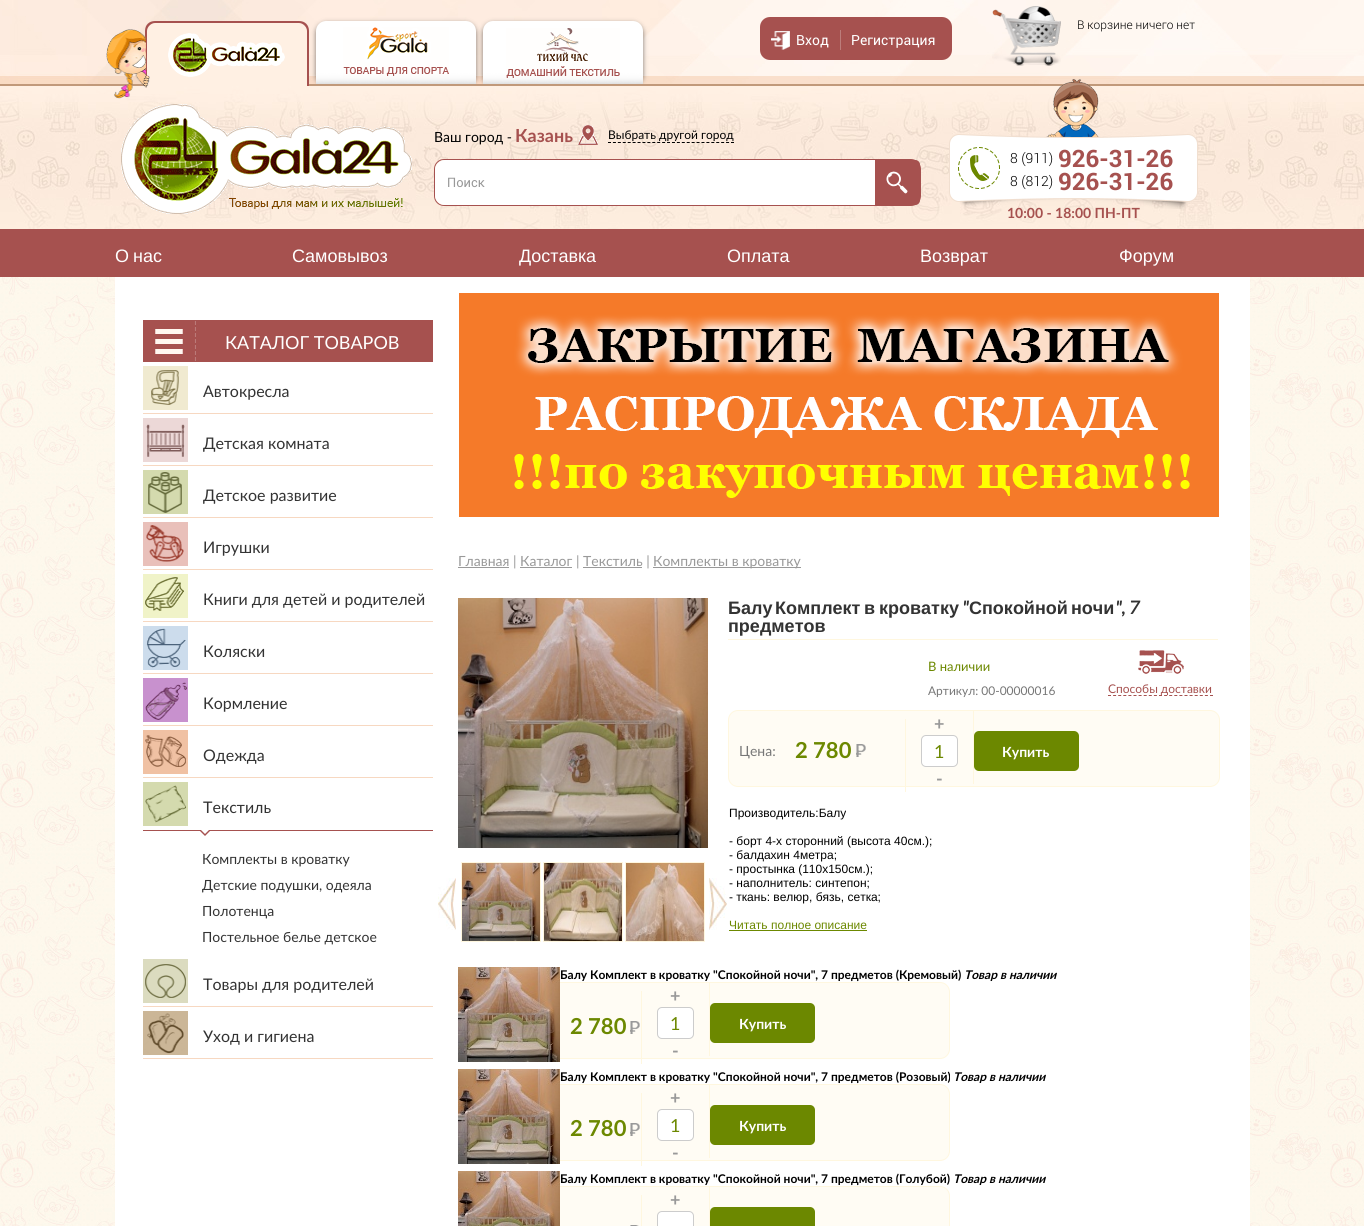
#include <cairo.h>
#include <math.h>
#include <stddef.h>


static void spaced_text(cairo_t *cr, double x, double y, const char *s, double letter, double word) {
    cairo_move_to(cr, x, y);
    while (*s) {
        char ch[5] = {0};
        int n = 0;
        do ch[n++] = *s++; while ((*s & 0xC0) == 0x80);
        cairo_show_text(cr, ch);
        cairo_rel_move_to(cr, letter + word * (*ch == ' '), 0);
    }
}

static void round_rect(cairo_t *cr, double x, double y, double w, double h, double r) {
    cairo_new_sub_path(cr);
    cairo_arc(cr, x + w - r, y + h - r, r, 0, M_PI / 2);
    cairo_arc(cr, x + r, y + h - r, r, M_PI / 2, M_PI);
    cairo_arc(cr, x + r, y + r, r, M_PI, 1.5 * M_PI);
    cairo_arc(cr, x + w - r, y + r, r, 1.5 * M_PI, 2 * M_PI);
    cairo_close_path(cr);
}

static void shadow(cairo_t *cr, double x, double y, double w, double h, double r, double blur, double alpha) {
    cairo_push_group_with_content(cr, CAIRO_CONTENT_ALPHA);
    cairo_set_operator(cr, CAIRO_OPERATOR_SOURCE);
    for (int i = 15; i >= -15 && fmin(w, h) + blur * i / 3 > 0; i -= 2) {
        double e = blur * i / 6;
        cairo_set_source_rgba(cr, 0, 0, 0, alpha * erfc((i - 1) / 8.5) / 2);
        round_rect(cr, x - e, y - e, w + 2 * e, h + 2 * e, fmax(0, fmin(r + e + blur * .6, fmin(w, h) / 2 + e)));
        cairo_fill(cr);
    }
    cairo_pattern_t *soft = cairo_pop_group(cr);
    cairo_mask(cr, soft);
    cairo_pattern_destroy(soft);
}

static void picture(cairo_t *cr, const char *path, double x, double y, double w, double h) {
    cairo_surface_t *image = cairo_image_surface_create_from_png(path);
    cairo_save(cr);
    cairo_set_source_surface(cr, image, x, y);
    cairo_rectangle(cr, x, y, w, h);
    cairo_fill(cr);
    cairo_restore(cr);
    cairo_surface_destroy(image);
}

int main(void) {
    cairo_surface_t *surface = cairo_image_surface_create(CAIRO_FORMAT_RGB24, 1364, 1226);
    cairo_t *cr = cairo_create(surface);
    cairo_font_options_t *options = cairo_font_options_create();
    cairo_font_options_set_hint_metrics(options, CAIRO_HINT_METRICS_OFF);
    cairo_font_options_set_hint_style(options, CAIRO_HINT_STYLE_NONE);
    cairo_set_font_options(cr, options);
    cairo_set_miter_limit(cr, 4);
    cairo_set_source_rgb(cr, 1, 1, 1);
    cairo_paint(cr);
    picture(cr, "img1.png", 0, 277, 1364, 949);
    picture(cr, "img2.png", 0, 0, 1364, 84);
    cairo_set_source_rgb(cr, 0, 0, 0);
    shadow(cr, 316, 23, 160, 63, 10, 2.5, 0.5);
    cairo_set_source_rgb(cr, 1, 1, 1);
    cairo_new_path(cr);
    cairo_move_to(cr, 326, 21);
    cairo_line_to(cr, 466, 21);
    cairo_curve_to(cr, 471.5, 21, 476, 25.5, 476, 31);
    cairo_line_to(cr, 476, 84);
    cairo_line_to(cr, 316, 84);
    cairo_line_to(cr, 316, 31);
    cairo_curve_to(cr, 316, 25.5, 320.5, 21, 326, 21);
    cairo_close_path(cr);
    cairo_fill(cr);
    picture(cr, "img5.png", 316, 27, 160, 57);
    cairo_set_source_rgb(cr, 0, 0, 0);
    shadow(cr, 483, 23, 160, 63, 10, 2.5, 0.5);
    cairo_set_source_rgb(cr, 0.757, 0.6, 0.478);
    cairo_rectangle(cr, 0, 84, 1364, 2);
    cairo_fill(cr);
    cairo_set_source_rgb(cr, 1, 0.941, 0.89);
    cairo_new_path(cr);
    cairo_move_to(cr, 155, 21);
    cairo_line_to(cr, 299, 21);
    cairo_curve_to(cr, 304.5, 21, 309, 25.5, 309, 31);
    cairo_line_to(cr, 309, 86);
    cairo_line_to(cr, 145, 86);
    cairo_line_to(cr, 145, 31);
    cairo_curve_to(cr, 145, 25.5, 149.5, 21, 155, 21);
    cairo_close_path(cr);
    cairo_fill(cr);
    picture(cr, "img4.png", 168, 33, 117, 44);
    cairo_set_source_rgb(cr, 0.651, 0.318, 0.31);
    cairo_set_fill_rule(cr, CAIRO_FILL_RULE_EVEN_ODD);
    cairo_new_path(cr);
    cairo_move_to(cr, 155, 21);
    cairo_line_to(cr, 299, 21);
    cairo_curve_to(cr, 305, 21, 309, 25, 309, 31);
    cairo_line_to(cr, 309, 86);
    cairo_line_to(cr, 145, 86);
    cairo_line_to(cr, 145, 31);
    cairo_curve_to(cr, 145, 25, 149, 21, 155, 21);
    cairo_close_path(cr);
    cairo_move_to(cr, 155, 23);
    cairo_line_to(cr, 299, 23);
    cairo_curve_to(cr, 303, 23, 307, 27, 307, 31);
    cairo_line_to(cr, 307, 86);
    cairo_line_to(cr, 147, 86);
    cairo_line_to(cr, 147, 31);
    cairo_curve_to(cr, 147, 27, 151, 23, 155, 23);
    cairo_close_path(cr);
    cairo_fill(cr);
    picture(cr, "img9.png", 0, 86, 1364, 143);
    picture(cr, "img3.png", 106, 29, 44, 70);
    cairo_set_source_rgb(cr, 1, 1, 1);
    cairo_new_path(cr);
    cairo_move_to(cr, 493, 21);
    cairo_line_to(cr, 633, 21);
    cairo_curve_to(cr, 638.5, 21, 643, 25.5, 643, 31);
    cairo_line_to(cr, 643, 84);
    cairo_line_to(cr, 483, 84);
    cairo_line_to(cr, 483, 31);
    cairo_curve_to(cr, 483, 25.5, 487.5, 21, 493, 21);
    cairo_close_path(cr);
    cairo_fill(cr);
    picture(cr, "img6.png", 483, 28, 160, 56);
    picture(cr, "img7.png", 992, 6, 69, 60);
    cairo_select_font_face(cr, "Roboto Light", CAIRO_FONT_SLANT_NORMAL, CAIRO_FONT_WEIGHT_NORMAL);
    cairo_set_font_size(cr, 12);
    cairo_set_source_rgb(cr, 0, 0, 0);
    cairo_move_to(cr, 1077, 29);
    cairo_show_text(cr, "В корзине ничего нет");
    cairo_set_source_rgb(cr, 0.651, 0.318, 0.31);
    round_rect(cr, 760, 17, 192, 43, 10);
    cairo_fill(cr);
    picture(cr, "img8.png", 771, 31, 19, 19);
    cairo_set_source_rgb(cr, 0.737, 0.49, 0.482);
    cairo_rectangle(cr, 840, 30, 1, 20);
    cairo_fill(cr);
    cairo_select_font_face(cr, "Roboto", CAIRO_FONT_SLANT_NORMAL, CAIRO_FONT_WEIGHT_NORMAL);
    cairo_set_font_size(cr, 14);
    cairo_set_source_rgb(cr, 1, 1, 1);
    cairo_move_to(cr, 796, 45);
    cairo_show_text(cr, "Вход");
    cairo_move_to(cr, 851, 45);
    cairo_show_text(cr, "Регистрация");
    picture(cr, "img10.png", 121, 104, 291, 110);
    picture(cr, "img11.png", 578, 125, 20, 20);
    cairo_select_font_face(cr, "Lato", CAIRO_FONT_SLANT_NORMAL, CAIRO_FONT_WEIGHT_NORMAL);
    cairo_set_source_rgb(cr, 0, 0, 0);
    cairo_move_to(cr, 434, 142);
    cairo_show_text(cr, "Ваш город -");
    cairo_select_font_face(cr, "Lato", CAIRO_FONT_SLANT_NORMAL, CAIRO_FONT_WEIGHT_BOLD);
    cairo_set_font_size(cr, 18);
    cairo_set_source_rgb(cr, 0.651, 0.318, 0.31);
    cairo_move_to(cr, 515, 142);
    cairo_show_text(cr, "Казань");
    cairo_select_font_face(cr, "Lato", CAIRO_FONT_SLANT_NORMAL, CAIRO_FONT_WEIGHT_NORMAL);
    cairo_set_font_size(cr, 12);
    cairo_set_source_rgb(cr, 0, 0, 0);
    cairo_move_to(cr, 608, 139);
    cairo_show_text(cr, "Выбрать другой город");
    cairo_new_path(cr);
    cairo_move_to(cr, 608, 142.5);
    cairo_line_to(cr, 734, 142.5);
    cairo_set_line_width(cr, 1);
    cairo_set_dash(cr, (double[]){3, 1.92}, 2, 0);
    cairo_stroke(cr);
    round_rect(cr, 434.5, 159.5, 486, 46, 9.5);
    cairo_set_source_rgb(cr, 0.651, 0.318, 0.31);
    cairo_set_dash(cr, NULL, 0, 0);
    cairo_stroke(cr);
    cairo_set_source_rgb(cr, 1, 1, 1);
    round_rect(cr, 435, 160, 485, 45, 10);
    cairo_fill(cr);
    cairo_select_font_face(cr, "Roboto", CAIRO_FONT_SLANT_NORMAL, CAIRO_FONT_WEIGHT_NORMAL);
    cairo_set_font_size(cr, 13);
    cairo_set_source_rgb(cr, 0.6, 0.6, 0.6);
    cairo_move_to(cr, 447, 187);
    cairo_show_text(cr, "Поиск");
    cairo_set_source_rgb(cr, 0.651, 0.318, 0.31);
    cairo_new_path(cr);
    cairo_move_to(cr, 875, 160);
    cairo_line_to(cr, 915, 160);
    cairo_curve_to(cr, 918, 160, 920, 162, 920, 165);
    cairo_line_to(cr, 920, 200);
    cairo_curve_to(cr, 920, 203, 918, 205, 915, 205);
    cairo_line_to(cr, 875, 205);
    cairo_close_path(cr);
    cairo_fill(cr);
    picture(cr, "img12.png", 886, 171, 22, 23);
    picture(cr, "img13.png", 949, 79, 249, 130);
    picture(cr, "img14.png", 958, 147, 42, 42);
    cairo_select_font_face(cr, "Roboto Light", CAIRO_FONT_SLANT_NORMAL, CAIRO_FONT_WEIGHT_NORMAL);
    cairo_set_font_size(cr, 14);
    cairo_set_source_rgb(cr, 0, 0, 0);
    cairo_move_to(cr, 1010, 163);
    cairo_show_text(cr, "8 (911)");
    cairo_select_font_face(cr, "Roboto", CAIRO_FONT_SLANT_NORMAL, CAIRO_FONT_WEIGHT_BOLD);
    cairo_set_font_size(cr, 24);
    cairo_set_source_rgb(cr, 0.651, 0.318, 0.31);
    cairo_move_to(cr, 1058, 167);
    cairo_show_text(cr, "926-31-26");
    cairo_select_font_face(cr, "Roboto Light", CAIRO_FONT_SLANT_NORMAL, CAIRO_FONT_WEIGHT_NORMAL);
    cairo_set_font_size(cr, 14);
    cairo_set_source_rgb(cr, 0, 0, 0);
    cairo_move_to(cr, 1010, 186);
    cairo_show_text(cr, "8 (812)");
    cairo_select_font_face(cr, "Roboto", CAIRO_FONT_SLANT_NORMAL, CAIRO_FONT_WEIGHT_BOLD);
    cairo_set_font_size(cr, 24);
    cairo_set_source_rgb(cr, 0.651, 0.318, 0.31);
    cairo_move_to(cr, 1058, 190);
    cairo_show_text(cr, "926-31-26");
    cairo_select_font_face(cr, "Lato", CAIRO_FONT_SLANT_NORMAL, CAIRO_FONT_WEIGHT_BOLD);
    cairo_set_font_size(cr, 14);
    cairo_move_to(cr, 1007, 218);
    cairo_show_text(cr, "10:00 - 18:00 ПН-ПТ");
    cairo_rectangle(cr, 0, 229, 1364, 48);
    cairo_fill(cr);
    cairo_select_font_face(cr, "Liberation Sans", CAIRO_FONT_SLANT_NORMAL, CAIRO_FONT_WEIGHT_NORMAL);
    cairo_set_font_size(cr, 18);
    cairo_set_source_rgb(cr, 1, 1, 1);
    spaced_text(cr, 115, 262, "О нас", 0, -1);
    cairo_move_to(cr, 292, 262);
    cairo_show_text(cr, "Самовывоз");
    cairo_move_to(cr, 519, 262);
    cairo_show_text(cr, "Доставка");
    cairo_move_to(cr, 727, 262);
    cairo_show_text(cr, "Оплата");
    cairo_move_to(cr, 920, 262);
    cairo_show_text(cr, "Возврат");
    cairo_move_to(cr, 1119, 262);
    cairo_show_text(cr, "Форум");
    cairo_rectangle(cr, 115, 277, 1135, 949);
    cairo_fill(cr);
    cairo_set_source_rgb(cr, 0.651, 0.318, 0.31);
    cairo_rectangle(cr, 143, 320, 290, 42);
    cairo_fill(cr);
    picture(cr, "img15.png", 155, 321, 41, 40);
    cairo_select_font_face(cr, "Lato", CAIRO_FONT_SLANT_NORMAL, CAIRO_FONT_WEIGHT_NORMAL);
    cairo_set_source_rgb(cr, 1, 1, 1);
    cairo_move_to(cr, 225, 349);
    cairo_show_text(cr, "КАТАЛОГ ТОВАРОВ");
    picture(cr, "img16.png", 143, 366, 45, 44);
    cairo_set_source_rgb(cr, 0.965, 0.847, 0.757);
    cairo_rectangle(cr, 143, 413, 290, 1);
    cairo_fill(cr);
    cairo_set_font_size(cr, 16);
    cairo_set_source_rgb(cr, 0.2, 0.2, 0.2);
    cairo_move_to(cr, 203, 397);
    cairo_show_text(cr, "Автокресла");
    picture(cr, "img17.png", 143, 418, 45, 44);
    cairo_set_source_rgb(cr, 0.965, 0.847, 0.757);
    cairo_rectangle(cr, 143, 465, 290, 1);
    cairo_fill(cr);
    cairo_set_source_rgb(cr, 0.2, 0.2, 0.2);
    cairo_move_to(cr, 203, 449);
    cairo_show_text(cr, "Детская комната");
    picture(cr, "img18.png", 143, 470, 45, 44);
    cairo_set_source_rgb(cr, 0.965, 0.847, 0.757);
    cairo_rectangle(cr, 143, 517, 290, 1);
    cairo_fill(cr);
    cairo_set_source_rgb(cr, 0.2, 0.2, 0.2);
    cairo_move_to(cr, 203, 501);
    cairo_show_text(cr, "Детское развитие");
    picture(cr, "img19.png", 143, 522, 45, 44);
    cairo_set_source_rgb(cr, 0.965, 0.847, 0.757);
    cairo_rectangle(cr, 143, 569, 290, 1);
    cairo_fill(cr);
    cairo_set_source_rgb(cr, 0.2, 0.2, 0.2);
    cairo_move_to(cr, 203, 553);
    cairo_show_text(cr, "Игрушки");
    picture(cr, "img20.png", 143, 574, 45, 44);
    cairo_set_source_rgb(cr, 0.965, 0.847, 0.757);
    cairo_rectangle(cr, 143, 621, 290, 1);
    cairo_fill(cr);
    cairo_set_source_rgb(cr, 0.2, 0.2, 0.2);
    cairo_move_to(cr, 203, 605);
    cairo_show_text(cr, "Книги для детей и родителей");
    picture(cr, "img21.png", 143, 626, 45, 44);
    cairo_set_source_rgb(cr, 0.965, 0.847, 0.757);
    cairo_rectangle(cr, 143, 673, 290, 1);
    cairo_fill(cr);
    cairo_set_source_rgb(cr, 0.2, 0.2, 0.2);
    cairo_move_to(cr, 203, 657);
    cairo_show_text(cr, "Коляски");
    picture(cr, "img22.png", 143, 678, 45, 44);
    cairo_set_source_rgb(cr, 0.965, 0.847, 0.757);
    cairo_rectangle(cr, 143, 725, 290, 1);
    cairo_fill(cr);
    cairo_set_source_rgb(cr, 0.2, 0.2, 0.2);
    cairo_move_to(cr, 203, 709);
    cairo_show_text(cr, "Кормление");
    picture(cr, "img23.png", 143, 730, 45, 44);
    cairo_set_source_rgb(cr, 0.965, 0.847, 0.757);
    cairo_rectangle(cr, 143, 777, 290, 1);
    cairo_fill(cr);
    cairo_set_source_rgb(cr, 0.2, 0.2, 0.2);
    cairo_move_to(cr, 203, 761);
    cairo_show_text(cr, "Одежда");
    picture(cr, "img24.png", 143, 782, 45, 44);
    picture(cr, "img25.png", 143, 830, 290, 6);
    cairo_move_to(cr, 203, 813);
    cairo_show_text(cr, "Текстиль");
    cairo_set_font_size(cr, 14);
    cairo_move_to(cr, 202, 864);
    cairo_show_text(cr, "Комплекты в кроватку");
    cairo_move_to(cr, 202, 890);
    cairo_show_text(cr, "Детские подушки, одеяла");
    cairo_move_to(cr, 202, 916);
    cairo_show_text(cr, "Полотенца");
    cairo_move_to(cr, 202, 942);
    cairo_show_text(cr, "Постельное белье детское");
    picture(cr, "img26.png", 143, 959, 45, 44);
    cairo_set_source_rgb(cr, 0.965, 0.847, 0.757);
    cairo_rectangle(cr, 143, 1006, 290, 1);
    cairo_fill(cr);
    cairo_set_font_size(cr, 16);
    cairo_set_source_rgb(cr, 0.2, 0.2, 0.2);
    cairo_move_to(cr, 203, 990);
    cairo_show_text(cr, "Товары для родителей");
    picture(cr, "img27.png", 143, 1011, 45, 44);
    cairo_set_source_rgb(cr, 0.965, 0.847, 0.757);
    cairo_rectangle(cr, 143, 1058, 290, 1);
    cairo_fill(cr);
    cairo_set_source_rgb(cr, 0.2, 0.2, 0.2);
    cairo_move_to(cr, 203, 1042);
    cairo_show_text(cr, "Уход и гигиена");
    picture(cr, "img28.png", 459, 293, 760, 224);
    cairo_set_source_rgb(cr, 0.6, 0.6, 0.6);
    cairo_rectangle(cr, 458, 567, 51, 1);
    cairo_fill(cr);
    cairo_set_font_size(cr, 14);
    cairo_move_to(cr, 458, 566);
    cairo_show_text(cr, "Главная | Каталог | Текстиль |");
    cairo_rectangle(cr, 653, 567, 148, 1);
    cairo_fill(cr);
    cairo_move_to(cr, 653, 566);
    cairo_show_text(cr, "Комплекты в кроватку");
    cairo_rectangle(cr, 520, 567, 52, 1);
    cairo_fill(cr);
    cairo_rectangle(cr, 583, 567, 59, 1);
    cairo_fill(cr);
    picture(cr, "img29.png", 458, 598, 250, 250);
    picture(cr, "img30.png", 438, 878, 18, 52);
    cairo_rectangle(cr, 461.5, 862.5, 79, 79);
    cairo_set_source_rgb(cr, 1, 0.965, 0.875);
    cairo_stroke(cr);
    picture(cr, "img31.png", 462, 863, 78, 78);
    cairo_rectangle(cr, 543.5, 862.5, 79, 79);
    cairo_stroke(cr);
    picture(cr, "img32.png", 544, 863, 78, 78);
    cairo_rectangle(cr, 625.5, 862.5, 79, 79);
    cairo_stroke(cr);
    picture(cr, "img33.png", 626, 863, 78, 78);
    picture(cr, "img34.png", 709, 878, 18, 52);
    cairo_rectangle(cr, 728, 639, 490, 1);
    cairo_fill(cr);
    cairo_select_font_face(cr, "Liberation Sans", CAIRO_FONT_SLANT_NORMAL, CAIRO_FONT_WEIGHT_BOLD);
    cairo_set_font_size(cr, 18);
    cairo_set_source_rgb(cr, 0.2, 0.2, 0.2);
    cairo_move_to(cr, 728, 614);
    cairo_show_text(cr, "Балу");
    cairo_move_to(cr, 775, 614);
    cairo_show_text(cr, "Комплект");
    cairo_move_to(cr, 864, 614);
    cairo_show_text(cr, "в");
    cairo_move_to(cr, 879, 614);
    cairo_show_text(cr, "кроватку");
    cairo_select_font_face(cr, "Lato", CAIRO_FONT_SLANT_ITALIC, CAIRO_FONT_WEIGHT_BOLD);
    cairo_move_to(cr, 962, 614);
    cairo_show_text(cr, "\"");
    cairo_select_font_face(cr, "Liberation Sans", CAIRO_FONT_SLANT_NORMAL, CAIRO_FONT_WEIGHT_BOLD);
    cairo_move_to(cr, 969, 614);
    cairo_show_text(cr, "Спокойной");
    cairo_move_to(cr, 1071, 614);
    cairo_show_text(cr, "ночи");
    cairo_select_font_face(cr, "Lato", CAIRO_FONT_SLANT_ITALIC, CAIRO_FONT_WEIGHT_BOLD);
    cairo_move_to(cr, 1115, 614);
    cairo_show_text(cr, "\", 7");
    cairo_select_font_face(cr, "Liberation Sans", CAIRO_FONT_SLANT_NORMAL, CAIRO_FONT_WEIGHT_BOLD);
    cairo_move_to(cr, 728, 632);
    cairo_show_text(cr, "предметов");
    cairo_select_font_face(cr, "Lato", CAIRO_FONT_SLANT_NORMAL, CAIRO_FONT_WEIGHT_NORMAL);
    cairo_set_font_size(cr, 13);
    cairo_set_source_rgb(cr, 0.424, 0.533, 0);
    cairo_move_to(cr, 928, 671);
    cairo_show_text(cr, "В наличии");
    cairo_set_font_size(cr, 12);
    cairo_set_source_rgb(cr, 0.467, 0.467, 0.467);
    cairo_move_to(cr, 928, 695);
    cairo_show_text(cr, "Артикул: 00-00000016");
    picture(cr, "img35.png", 1138, 650, 46, 24);
    cairo_new_path(cr);
    cairo_move_to(cr, 1108, 695.5);
    cairo_line_to(cr, 1213, 695.5);
    cairo_set_source_rgb(cr, 0.651, 0.318, 0.31);
    cairo_set_dash(cr, (double[]){3, 2.1}, 2, 0);
    cairo_stroke(cr);
    cairo_move_to(cr, 1108, 693);
    cairo_show_text(cr, "Способы доставки");
    cairo_set_source_rgb(cr, 1, 0.988, 0.957);
    round_rect(cr, 728.5, 710.5, 491, 76, 9.5);
    cairo_fill_preserve(cr);
    cairo_set_source_rgb(cr, 1, 0.965, 0.875);
    cairo_set_dash(cr, NULL, 0, 0);
    cairo_stroke(cr);
    cairo_rectangle(cr, 905, 719, 1, 73);
    cairo_fill(cr);
    cairo_set_font_size(cr, 14);
    cairo_set_source_rgb(cr, 0.467, 0.467, 0.467);
    cairo_move_to(cr, 739, 756);
    cairo_show_text(cr, "Цена:");
    picture(cr, "img36.png", 856, 744, 10, 13);
    cairo_select_font_face(cr, "Lato", CAIRO_FONT_SLANT_NORMAL, CAIRO_FONT_WEIGHT_BOLD);
    cairo_set_font_size(cr, 22);
    cairo_set_source_rgb(cr, 0.424, 0.533, 0);
    cairo_move_to(cr, 795, 758);
    cairo_show_text(cr, "2 780");
    cairo_set_source_rgb(cr, 1, 0.965, 0.875);
    cairo_rectangle(cr, 973, 711, 1, 73);
    cairo_fill(cr);
    cairo_set_font_size(cr, 18);
    cairo_set_source_rgb(cr, 0.6, 0.6, 0.6);
    cairo_move_to(cr, 934, 730);
    cairo_show_text(cr, "+");
    cairo_set_source_rgb(cr, 1, 1, 1);
    round_rect(cr, 921.5, 735.5, 36, 31, 4.5);
    cairo_fill_preserve(cr);
    cairo_set_source_rgb(cr, 0.8, 0.8, 0.8);
    cairo_stroke(cr);
    cairo_select_font_face(cr, "Lato", CAIRO_FONT_SLANT_NORMAL, CAIRO_FONT_WEIGHT_NORMAL);
    cairo_set_source_rgb(cr, 0.424, 0.533, 0);
    cairo_move_to(cr, 934, 758);
    cairo_show_text(cr, "1");
    cairo_select_font_face(cr, "Lato", CAIRO_FONT_SLANT_NORMAL, CAIRO_FONT_WEIGHT_BOLD);
    cairo_set_source_rgb(cr, 0.6, 0.6, 0.6);
    cairo_move_to(cr, 936, 785);
    cairo_show_text(cr, "-");
    cairo_set_source_rgb(cr, 0.424, 0.533, 0);
    round_rect(cr, 974, 731, 105, 40, 5);
    cairo_fill(cr);
    cairo_set_font_size(cr, 14);
    cairo_set_source_rgb(cr, 1, 1, 1);
    cairo_move_to(cr, 1002, 757);
    cairo_show_text(cr, "Купить");
    cairo_select_font_face(cr, "Liberation Sans", CAIRO_FONT_SLANT_NORMAL, CAIRO_FONT_WEIGHT_NORMAL);
    cairo_set_font_size(cr, 12);
    cairo_set_source_rgb(cr, 0, 0, 0);
    cairo_move_to(cr, 729, 817);
    cairo_show_text(cr, "Производитель:Балу");
    cairo_move_to(cr, 729, 845);
    cairo_show_text(cr, "- борт 4-х сторонний (высота 40см.);");
    cairo_move_to(cr, 729, 859);
    cairo_show_text(cr, "- балдахин 4метра;");
    cairo_move_to(cr, 729, 873);
    cairo_show_text(cr, "- простынка (110х150см.);");
    cairo_move_to(cr, 729, 887);
    cairo_show_text(cr, "- наполнитель: синтепон;");
    cairo_move_to(cr, 729, 901);
    cairo_show_text(cr, "- ткань: велюр, бязь, сетка;");
    cairo_set_source_rgb(cr, 0.424, 0.533, 0);
    cairo_move_to(cr, 729, 929);
    cairo_show_text(cr, "Читать полное описание");
    cairo_rectangle(cr, 729, 930, 138, 1);
    cairo_fill(cr);
    cairo_set_source_rgb(cr, 1, 0.988, 0.957);
    round_rect(cr, 458.5, 982.5, 491, 76, 9.5);
    cairo_fill_preserve(cr);
    cairo_set_source_rgb(cr, 1, 0.965, 0.875);
    cairo_stroke(cr);
    picture(cr, "img37.png", 458, 967, 102, 95);
    cairo_select_font_face(cr, "Lato", CAIRO_FONT_SLANT_NORMAL, CAIRO_FONT_WEIGHT_BOLD);
    cairo_set_source_rgb(cr, 0, 0, 0);
    cairo_move_to(cr, 560, 979);
    cairo_show_text(cr, "Балу Комплект в кроватку \"Спокойной ночи\", 7 предметов (Кремовый)");
    cairo_select_font_face(cr, "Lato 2", CAIRO_FONT_SLANT_ITALIC, CAIRO_FONT_WEIGHT_BOLD);
    cairo_move_to(cr, 964, 979);
    cairo_show_text(cr, "Товар в наличии");
    picture(cr, "img36.png", 630, 1021, 10, 13);
    cairo_set_source_rgb(cr, 1, 0.965, 0.875);
    cairo_rectangle(cr, 641, 991, 1, 73);
    cairo_fill(cr);
    cairo_select_font_face(cr, "Lato", CAIRO_FONT_SLANT_NORMAL, CAIRO_FONT_WEIGHT_BOLD);
    cairo_set_font_size(cr, 22);
    cairo_set_source_rgb(cr, 0.424, 0.533, 0);
    cairo_move_to(cr, 570, 1034);
    cairo_show_text(cr, "2 780");
    cairo_set_source_rgb(cr, 1, 0.965, 0.875);
    cairo_rectangle(cr, 709, 983, 1, 73);
    cairo_fill(cr);
    cairo_set_font_size(cr, 18);
    cairo_set_source_rgb(cr, 0.6, 0.6, 0.6);
    cairo_move_to(cr, 670, 1002);
    cairo_show_text(cr, "+");
    cairo_set_source_rgb(cr, 1, 1, 1);
    round_rect(cr, 657.5, 1007.5, 36, 31, 4.5);
    cairo_fill_preserve(cr);
    cairo_set_source_rgb(cr, 0.8, 0.8, 0.8);
    cairo_stroke(cr);
    cairo_select_font_face(cr, "Lato", CAIRO_FONT_SLANT_NORMAL, CAIRO_FONT_WEIGHT_NORMAL);
    cairo_set_source_rgb(cr, 0.424, 0.533, 0);
    cairo_move_to(cr, 670, 1030);
    cairo_show_text(cr, "1");
    cairo_select_font_face(cr, "Lato", CAIRO_FONT_SLANT_NORMAL, CAIRO_FONT_WEIGHT_BOLD);
    cairo_set_source_rgb(cr, 0.6, 0.6, 0.6);
    cairo_move_to(cr, 672, 1057);
    cairo_show_text(cr, "-");
    cairo_set_source_rgb(cr, 0.424, 0.533, 0);
    round_rect(cr, 710, 1003, 105, 40, 5);
    cairo_fill(cr);
    cairo_set_font_size(cr, 14);
    cairo_set_source_rgb(cr, 1, 1, 1);
    cairo_move_to(cr, 739, 1029);
    cairo_show_text(cr, "Купить");
    cairo_set_source_rgb(cr, 1, 0.988, 0.957);
    round_rect(cr, 458.5, 1084.5, 491, 76, 9.5);
    cairo_fill_preserve(cr);
    cairo_set_source_rgb(cr, 1, 0.965, 0.875);
    cairo_stroke(cr);
    picture(cr, "img37.png", 458, 1069, 102, 95);
    cairo_set_font_size(cr, 12);
    cairo_set_source_rgb(cr, 0, 0, 0);
    cairo_move_to(cr, 560, 1081);
    cairo_show_text(cr, "Балу Комплект в кроватку \"Спокойной ночи\", 7 предметов (Розовый)");
    cairo_select_font_face(cr, "Lato 2", CAIRO_FONT_SLANT_ITALIC, CAIRO_FONT_WEIGHT_BOLD);
    cairo_move_to(cr, 953, 1081);
    cairo_show_text(cr, "Товар в наличии");
    picture(cr, "img36.png", 630, 1123, 10, 13);
    cairo_set_source_rgb(cr, 1, 0.965, 0.875);
    cairo_rectangle(cr, 641, 1093, 1, 73);
    cairo_fill(cr);
    cairo_select_font_face(cr, "Lato", CAIRO_FONT_SLANT_NORMAL, CAIRO_FONT_WEIGHT_BOLD);
    cairo_set_font_size(cr, 22);
    cairo_set_source_rgb(cr, 0.424, 0.533, 0);
    cairo_move_to(cr, 570, 1136);
    cairo_show_text(cr, "2 780");
    cairo_set_source_rgb(cr, 1, 0.965, 0.875);
    cairo_rectangle(cr, 709, 1085, 1, 73);
    cairo_fill(cr);
    cairo_set_font_size(cr, 18);
    cairo_set_source_rgb(cr, 0.6, 0.6, 0.6);
    cairo_move_to(cr, 670, 1104);
    cairo_show_text(cr, "+");
    cairo_set_source_rgb(cr, 1, 1, 1);
    round_rect(cr, 657.5, 1109.5, 36, 31, 4.5);
    cairo_fill_preserve(cr);
    cairo_set_source_rgb(cr, 0.8, 0.8, 0.8);
    cairo_stroke(cr);
    cairo_select_font_face(cr, "Lato", CAIRO_FONT_SLANT_NORMAL, CAIRO_FONT_WEIGHT_NORMAL);
    cairo_set_source_rgb(cr, 0.424, 0.533, 0);
    cairo_move_to(cr, 670, 1132);
    cairo_show_text(cr, "1");
    cairo_select_font_face(cr, "Lato", CAIRO_FONT_SLANT_NORMAL, CAIRO_FONT_WEIGHT_BOLD);
    cairo_set_source_rgb(cr, 0.6, 0.6, 0.6);
    cairo_move_to(cr, 672, 1159);
    cairo_show_text(cr, "-");
    cairo_set_source_rgb(cr, 0.424, 0.533, 0);
    round_rect(cr, 710, 1105, 105, 40, 5);
    cairo_fill(cr);
    cairo_set_font_size(cr, 14);
    cairo_set_source_rgb(cr, 1, 1, 1);
    cairo_move_to(cr, 739, 1131);
    cairo_show_text(cr, "Купить");
    cairo_set_source_rgb(cr, 1, 0.988, 0.957);
    round_rect(cr, 458.5, 1186.5, 491, 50, 9.5);
    cairo_fill_preserve(cr);
    cairo_set_source_rgb(cr, 1, 0.965, 0.875);
    cairo_stroke(cr);
    picture(cr, "img38.png", 458, 1171, 102, 55);
    cairo_set_font_size(cr, 12);
    cairo_set_source_rgb(cr, 0, 0, 0);
    cairo_move_to(cr, 560, 1183);
    cairo_show_text(cr, "Балу Комплект в кроватку \"Спокойной ночи\", 7 предметов (Голубой)");
    cairo_select_font_face(cr, "Lato 2", CAIRO_FONT_SLANT_ITALIC, CAIRO_FONT_WEIGHT_BOLD);
    cairo_move_to(cr, 953, 1183);
    cairo_show_text(cr, "Товар в наличии");
    picture(cr, "img39.png", 630, 1225, 9, 1);
    cairo_set_source_rgb(cr, 1, 0.965, 0.875);
    cairo_rectangle(cr, 641, 1195, 1, 31);
    cairo_fill(cr);
    cairo_rectangle(cr, 709, 1187, 1, 39);
    cairo_fill(cr);
    cairo_select_font_face(cr, "Lato", CAIRO_FONT_SLANT_NORMAL, CAIRO_FONT_WEIGHT_BOLD);
    cairo_set_font_size(cr, 18);
    cairo_set_source_rgb(cr, 0.6, 0.6, 0.6);
    cairo_move_to(cr, 670, 1206);
    cairo_show_text(cr, "+");
    cairo_set_source_rgb(cr, 1, 1, 1);
    round_rect(cr, 657.5, 1211.5, 36, 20, 4.5);
    cairo_fill_preserve(cr);
    cairo_set_source_rgb(cr, 0.8, 0.8, 0.8);
    cairo_stroke(cr);
    cairo_set_source_rgb(cr, 0.424, 0.533, 0);
    round_rect(cr, 710, 1207, 105, 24, 5);
    cairo_fill(cr);
    cairo_surface_write_to_png(surface, "page.png");
    cairo_font_options_destroy(options);
    cairo_destroy(cr);
    cairo_surface_destroy(surface);
    return 0;
}
